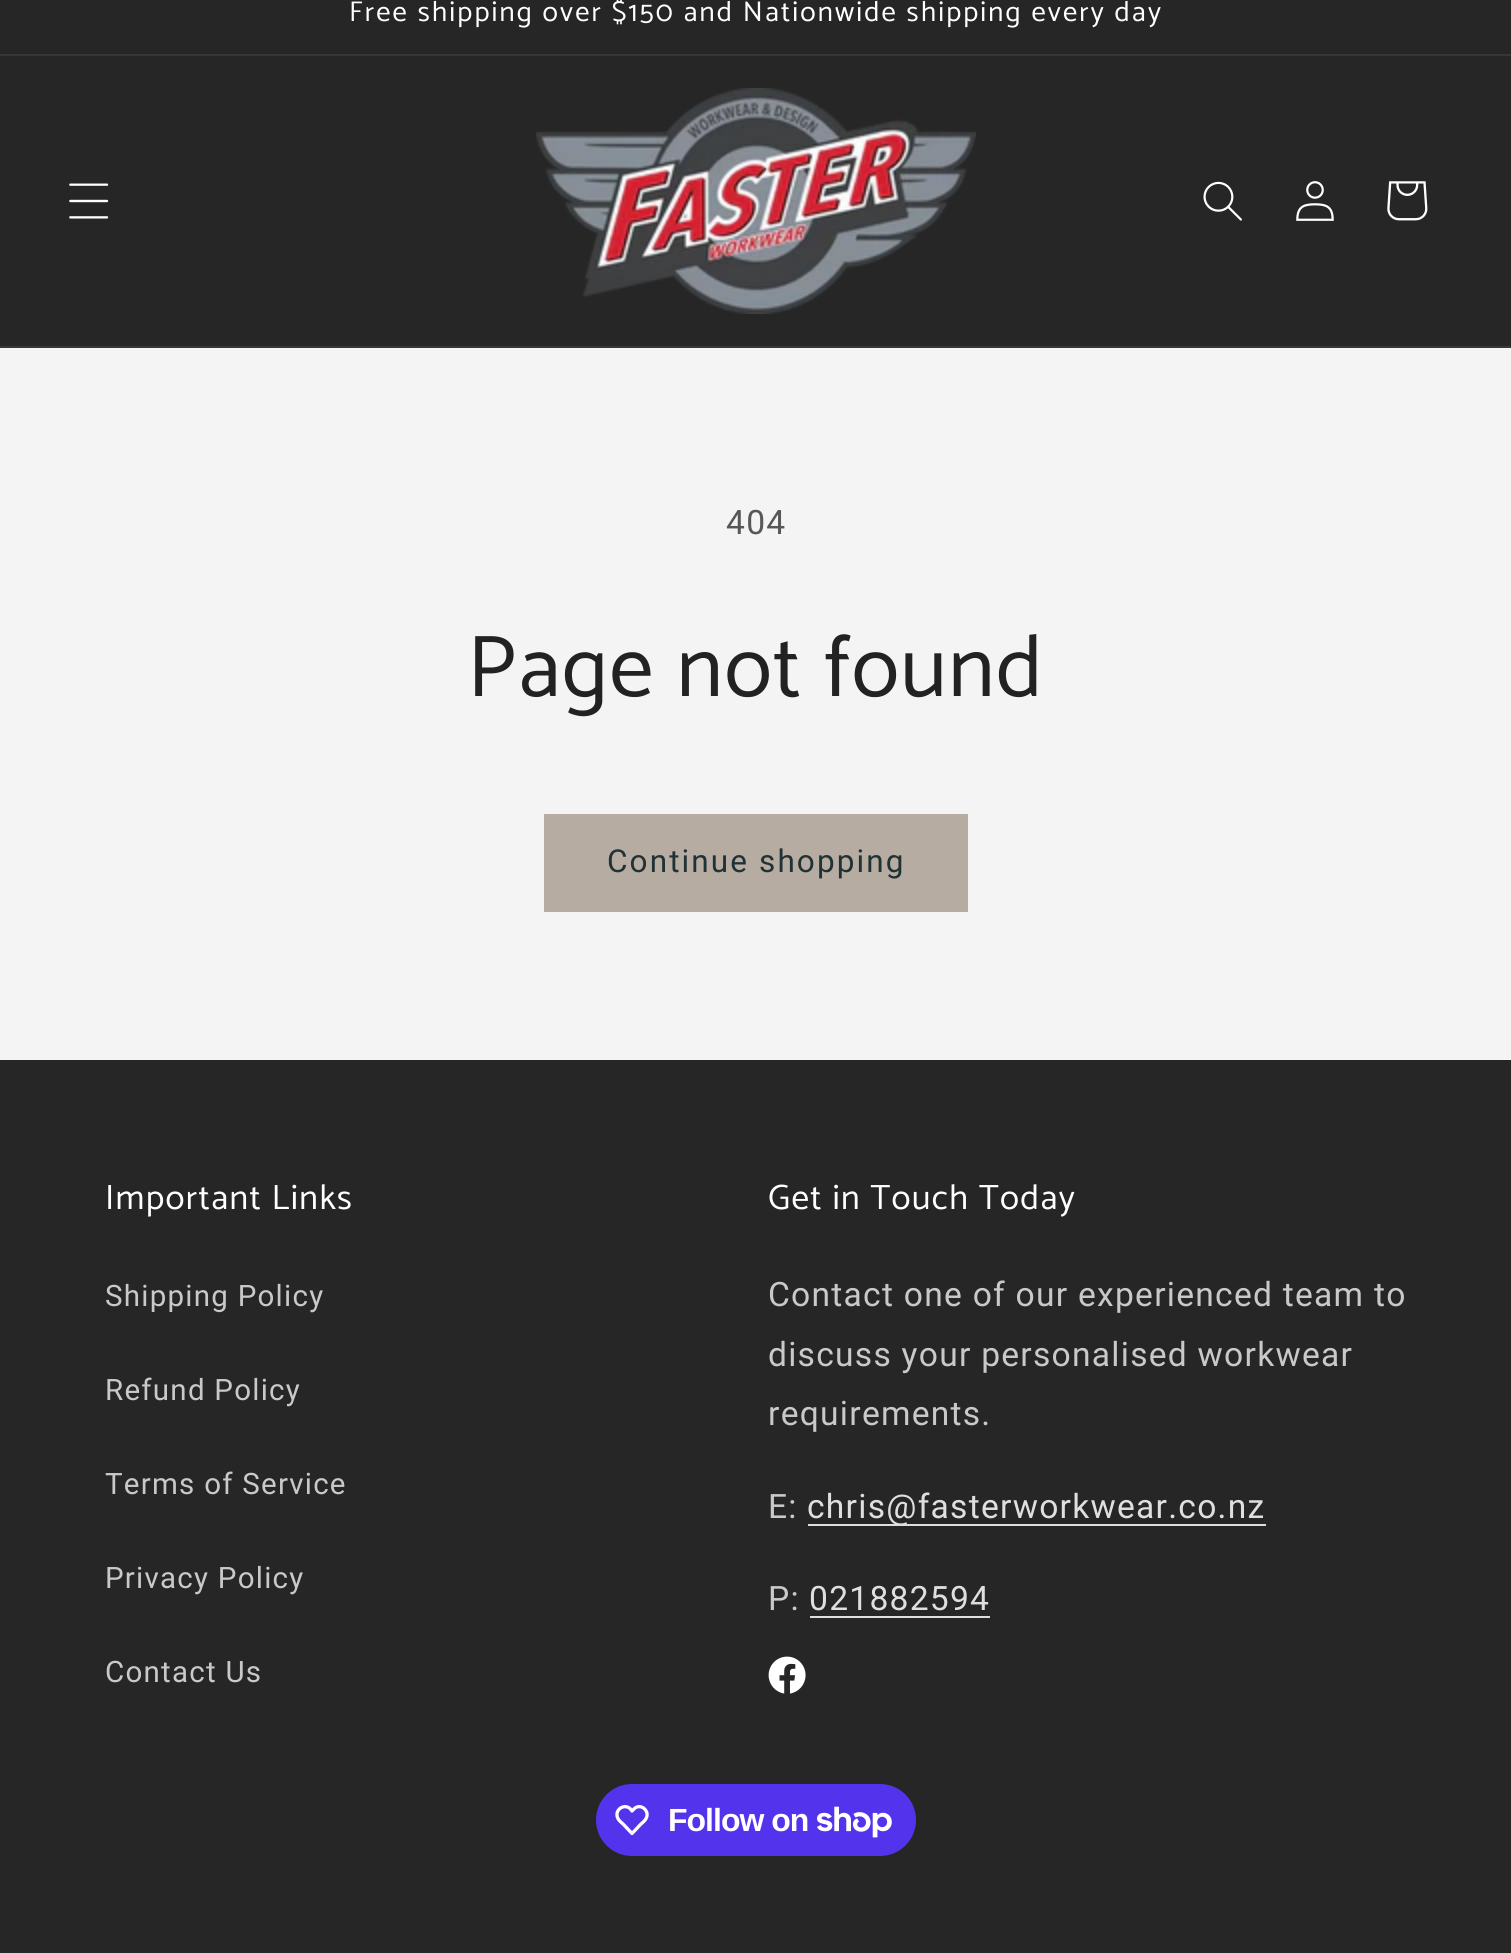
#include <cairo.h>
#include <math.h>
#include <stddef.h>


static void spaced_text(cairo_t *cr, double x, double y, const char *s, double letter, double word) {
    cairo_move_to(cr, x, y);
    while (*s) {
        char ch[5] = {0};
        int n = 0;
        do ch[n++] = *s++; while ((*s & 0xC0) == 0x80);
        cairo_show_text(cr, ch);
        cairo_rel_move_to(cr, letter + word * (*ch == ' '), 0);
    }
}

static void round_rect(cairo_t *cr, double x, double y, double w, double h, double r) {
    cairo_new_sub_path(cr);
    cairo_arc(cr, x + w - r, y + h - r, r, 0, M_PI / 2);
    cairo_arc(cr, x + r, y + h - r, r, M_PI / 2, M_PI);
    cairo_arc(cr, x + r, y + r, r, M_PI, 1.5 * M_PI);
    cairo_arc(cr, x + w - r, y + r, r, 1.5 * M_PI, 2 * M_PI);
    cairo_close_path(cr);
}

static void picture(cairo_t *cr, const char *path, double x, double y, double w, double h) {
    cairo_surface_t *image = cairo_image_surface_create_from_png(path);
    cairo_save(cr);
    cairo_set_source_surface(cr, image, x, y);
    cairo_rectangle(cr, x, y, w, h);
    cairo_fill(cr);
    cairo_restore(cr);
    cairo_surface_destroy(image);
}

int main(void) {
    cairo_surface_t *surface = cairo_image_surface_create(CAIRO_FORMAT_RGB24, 1511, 1953);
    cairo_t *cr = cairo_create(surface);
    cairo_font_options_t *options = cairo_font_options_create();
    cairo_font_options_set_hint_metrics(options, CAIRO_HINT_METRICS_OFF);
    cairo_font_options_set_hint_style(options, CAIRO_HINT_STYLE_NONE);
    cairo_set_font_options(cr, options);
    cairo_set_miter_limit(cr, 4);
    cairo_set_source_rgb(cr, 0.957, 0.957, 0.957);
    cairo_paint(cr);
    cairo_set_source_rgb(cr, 0.149, 0.149, 0.149);
    cairo_rectangle(cr, 0, 0, 1511, 54);
    cairo_fill(cr);
    cairo_set_source_rgb(cr, 0.216, 0.216, 0.216);
    cairo_rectangle(cr, 0, 54, 1511, 2);
    cairo_fill(cr);
    cairo_select_font_face(cr, "Catamaran", CAIRO_FONT_SLANT_NORMAL, CAIRO_FONT_WEIGHT_NORMAL);
    cairo_set_font_size(cr, 28.6);
    cairo_set_source_rgb(cr, 1, 1, 1);
    spaced_text(cr, 349, 21, "Free shipping over $150 and Nationwide shipping every day", 2.1, 0);
    cairo_set_source_rgb(cr, 0.149, 0.149, 0.149);
    cairo_rectangle(cr, 0, 56, 1511, 290);
    cairo_fill(cr);
    cairo_set_source_rgb(cr, 0.216, 0.216, 0.216);
    cairo_rectangle(cr, 0, 346, 1511, 2);
    cairo_fill(cr);
    picture(cr, "img1.png", 69, 183, 40, 36);
    picture(cr, "img2.png", 536, 88, 440, 226);
    picture(cr, "img3.png", 1203, 181, 39, 40);
    picture(cr, "img4.png", 1296, 181, 38, 40);
    picture(cr, "img5.png", 1387, 181, 41, 40);
    cairo_select_font_face(cr, "Roboto", CAIRO_FONT_SLANT_NORMAL, CAIRO_FONT_WEIGHT_NORMAL);
    cairo_set_font_size(cr, 33.6);
    cairo_set_source_rgb(cr, 0.341, 0.341, 0.341);
    spaced_text(cr, 726, 534, "404", 1.25, 0);
    cairo_select_font_face(cr, "Catamaran", CAIRO_FONT_SLANT_NORMAL, CAIRO_FONT_WEIGHT_NORMAL);
    cairo_set_font_size(cr, 88);
    cairo_set_source_rgb(cr, 0.133, 0.133, 0.133);
    spaced_text(cr, 467, 696, "Page not found", 1.3, 0);
    cairo_set_source_rgb(cr, 0.718, 0.675, 0.635);
    cairo_rectangle(cr, 544, 814, 424, 98);
    cairo_fill(cr);
    cairo_select_font_face(cr, "Roboto", CAIRO_FONT_SLANT_NORMAL, CAIRO_FONT_WEIGHT_NORMAL);
    cairo_set_font_size(cr, 31.5);
    cairo_set_source_rgb(cr, 0.129, 0.196, 0.212);
    spaced_text(cr, 607, 872, "Continue shopping", 2.1, 0);
    cairo_set_source_rgb(cr, 0.149, 0.149, 0.149);
    cairo_rectangle(cr, 0, 1060, 1511, 893);
    cairo_fill(cr);
    cairo_select_font_face(cr, "Catamaran", CAIRO_FONT_SLANT_NORMAL, CAIRO_FONT_WEIGHT_NORMAL);
    cairo_set_font_size(cr, 35.25);
    cairo_set_source_rgb(cr, 1, 1, 1);
    spaced_text(cr, 105, 1209, "Important Links", 1.3, 0);
    cairo_select_font_face(cr, "Roboto", CAIRO_FONT_SLANT_NORMAL, CAIRO_FONT_WEIGHT_NORMAL);
    cairo_set_font_size(cr, 29.5);
    cairo_set_source_rgb(cr, 0.788, 0.788, 0.788);
    spaced_text(cr, 105, 1306, "Shipping Policy", 1.25, 0);
    spaced_text(cr, 105, 1400, "Refund Policy", 1.25, 0);
    spaced_text(cr, 105, 1494, "Terms of Service", 1.25, 0);
    spaced_text(cr, 105, 1588, "Privacy Policy", 1.25, 0);
    spaced_text(cr, 105, 1682, "Contact Us", 1.25, 0);
    cairo_select_font_face(cr, "Catamaran", CAIRO_FONT_SLANT_NORMAL, CAIRO_FONT_WEIGHT_NORMAL);
    cairo_set_font_size(cr, 35.25);
    cairo_set_source_rgb(cr, 1, 1, 1);
    spaced_text(cr, 768, 1209, "Get in Touch Today", 1.3, 0);
    cairo_select_font_face(cr, "Roboto", CAIRO_FONT_SLANT_NORMAL, CAIRO_FONT_WEIGHT_NORMAL);
    cairo_set_font_size(cr, 33.6);
    cairo_set_source_rgb(cr, 0.788, 0.788, 0.788);
    spaced_text(cr, 768, 1306, "Contact one of our experienced team to", 1.25, 0);
    spaced_text(cr, 768, 1366, "discuss your personalised workwear", 1.25, 0);
    spaced_text(cr, 768, 1425, "requirements.", 1.25, 0);
    spaced_text(cr, 768, 1518, "E:", 1.25, 0);
    cairo_set_source_rgb(cr, 0.871, 0.871, 0.871);
    cairo_rectangle(cr, 808, 1524, 458, 2);
    cairo_fill(cr);
    cairo_set_source_rgb(cr, 0.875, 0.875, 0.875);
    spaced_text(cr, 807, 1518, "chris@fasterworkwear.co.nz", 1.25, 0);
    cairo_set_source_rgb(cr, 0.788, 0.788, 0.788);
    spaced_text(cr, 768, 1610, "P:", 1.25, 0);
    cairo_set_source_rgb(cr, 0.875, 0.875, 0.875);
    spaced_text(cr, 809, 1610, "021882594", 1.25, 0);
    cairo_set_source_rgb(cr, 0.871, 0.871, 0.871);
    cairo_rectangle(cr, 810, 1616, 180, 2);
    cairo_fill(cr);
    picture(cr, "img6.png", 768, 1656, 38, 38);
    cairo_set_source_rgb(cr, 0.329, 0.2, 0.922);
    round_rect(cr, 596, 1784, 320, 72, 36);
    cairo_fill(cr);
    cairo_new_path(cr);
    cairo_move_to(cr, 630.5, 1809);
    cairo_line_to(cr, 632, 1811);
    cairo_curve_to(cr, 633.5, 1809.5, 635, 1807.5, 637, 1807);
    cairo_curve_to(cr, 643, 1805, 649, 1811.5, 646.5, 1817.5);
    cairo_curve_to(cr, 645.5, 1820.5, 642.5, 1822.5, 640.5, 1824.5);
    cairo_line_to(cr, 632, 1833.5);
    cairo_line_to(cr, 623.5, 1824.5);
    cairo_curve_to(cr, 621.5, 1822.5, 618.5, 1820.5, 617.5, 1817.5);
    cairo_curve_to(cr, 614.5, 1809.5, 624.5, 1803, 630.5, 1809);
    cairo_close_path(cr);
    cairo_set_source_rgb(cr, 1, 1, 1);
    cairo_set_line_width(cr, 3.3);
    cairo_set_line_join(cr, CAIRO_LINE_JOIN_ROUND);
    cairo_stroke(cr);
    cairo_select_font_face(cr, "Liberation Sans", CAIRO_FONT_SLANT_NORMAL, CAIRO_FONT_WEIGHT_BOLD);
    cairo_set_font_size(cr, 32);
    spaced_text(cr, 668, 1831, "Follow on", -1, 0);
    picture(cr, "img7.png", 817, 1806, 75, 32);
    cairo_surface_write_to_png(surface, "page.png");
    cairo_font_options_destroy(options);
    cairo_destroy(cr);
    cairo_surface_destroy(surface);
    return 0;
}
